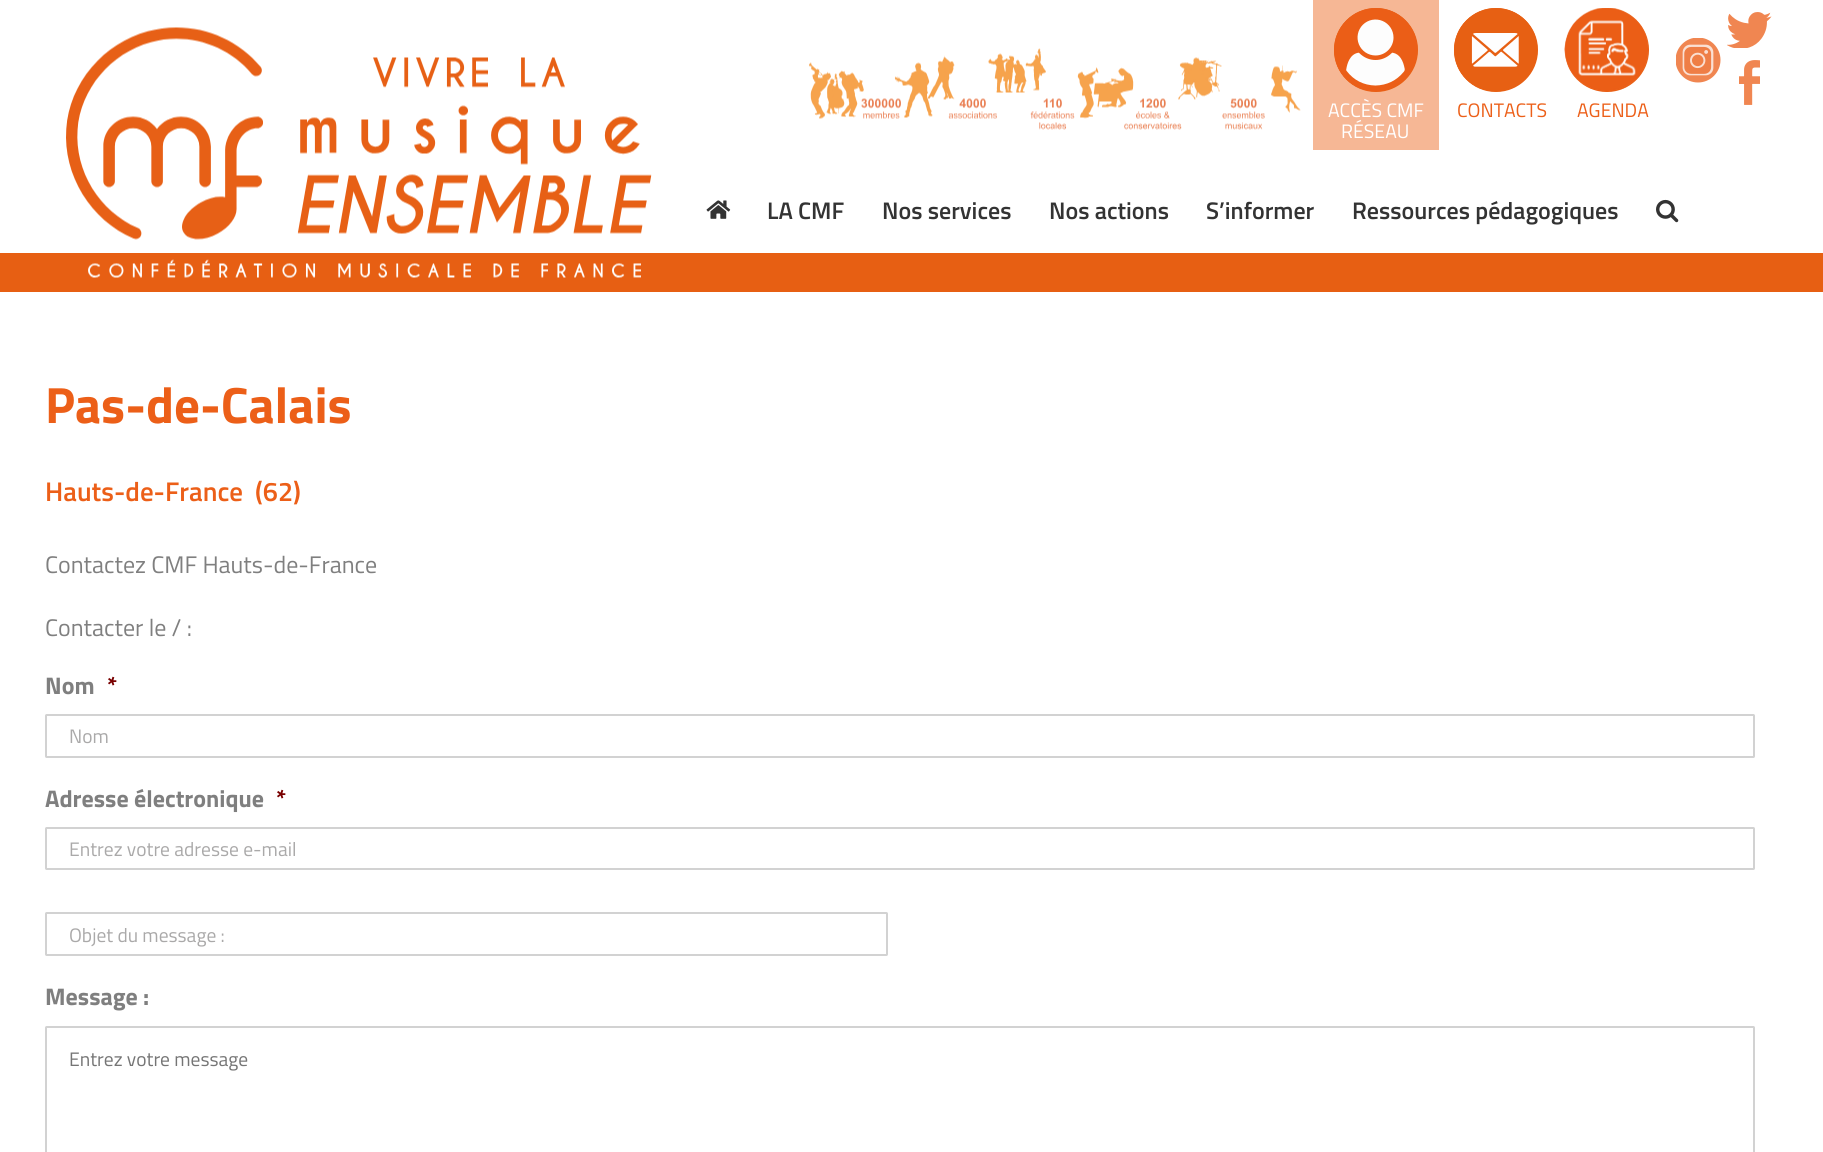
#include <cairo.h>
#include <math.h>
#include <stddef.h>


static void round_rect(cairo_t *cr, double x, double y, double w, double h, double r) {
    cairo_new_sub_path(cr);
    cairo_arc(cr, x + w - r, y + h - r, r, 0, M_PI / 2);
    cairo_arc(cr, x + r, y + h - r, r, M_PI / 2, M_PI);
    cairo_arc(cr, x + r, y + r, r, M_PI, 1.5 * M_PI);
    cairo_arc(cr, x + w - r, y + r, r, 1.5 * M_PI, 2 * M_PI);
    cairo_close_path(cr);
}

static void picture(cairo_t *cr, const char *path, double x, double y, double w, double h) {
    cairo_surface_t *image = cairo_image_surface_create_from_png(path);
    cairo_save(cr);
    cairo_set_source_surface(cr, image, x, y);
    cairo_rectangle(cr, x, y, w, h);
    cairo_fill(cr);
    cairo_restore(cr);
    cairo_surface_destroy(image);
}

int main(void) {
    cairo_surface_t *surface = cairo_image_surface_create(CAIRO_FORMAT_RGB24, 1823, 1152);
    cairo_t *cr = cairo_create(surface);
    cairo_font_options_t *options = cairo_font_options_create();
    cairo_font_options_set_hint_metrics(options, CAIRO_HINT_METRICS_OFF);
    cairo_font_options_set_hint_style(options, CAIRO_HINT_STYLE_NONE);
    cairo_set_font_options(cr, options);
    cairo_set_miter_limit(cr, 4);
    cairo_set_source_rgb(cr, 1, 1, 1);
    cairo_paint(cr);
    cairo_set_source_rgb(cr, 0.906, 0.373, 0.075);
    cairo_rectangle(cr, 0, 253, 1823, 39);
    cairo_fill(cr);
    picture(cr, "img1.png", 66, 27, 586, 251);
    picture(cr, "img2.png", 809, 48, 492, 82);
    cairo_set_source_rgb(cr, 0.961, 0.718, 0.584);
    cairo_rectangle(cr, 1313, 0, 126, 150);
    cairo_fill(cr);
    cairo_set_source_rgb(cr, 0.91, 0.376, 0.075);
    cairo_arc(cr, 1376, 50, 42, 0, 2 * M_PI);
    cairo_fill(cr);
    picture(cr, "img3.png", 1334, 8, 84, 84);
    cairo_select_font_face(cr, "Titillium Web", CAIRO_FONT_SLANT_NORMAL, CAIRO_FONT_WEIGHT_NORMAL);
    cairo_set_font_size(cr, 19.5);
    cairo_set_source_rgb(cr, 1, 1, 1);
    cairo_move_to(cr, 1328, 117);
    cairo_show_text(cr, "ACCÈS CMF");
    cairo_move_to(cr, 1341, 138);
    cairo_show_text(cr, "RÉSEAU");
    cairo_set_source_rgb(cr, 0.91, 0.376, 0.075);
    cairo_new_path(cr);
    cairo_arc(cr, 1496, 50, 42, 0, 2 * M_PI);
    cairo_fill(cr);
    picture(cr, "img4.png", 1454, 8, 84, 84);
    cairo_set_source_rgb(cr, 0.922, 0.373, 0.094);
    cairo_move_to(cr, 1457, 117);
    cairo_show_text(cr, "CONTACTS");
    cairo_set_source_rgb(cr, 0.91, 0.376, 0.075);
    cairo_new_path(cr);
    cairo_arc(cr, 1607, 50, 42, 0, 2 * M_PI);
    cairo_fill(cr);
    picture(cr, "img5.png", 1564, 8, 85, 84);
    cairo_set_source_rgb(cr, 0.922, 0.373, 0.094);
    cairo_move_to(cr, 1577, 117);
    cairo_show_text(cr, "AGENDA");
    picture(cr, "img6.png", 1727, 12, 45, 36);
    picture(cr, "img7.png", 1676, 38, 45, 45);
    picture(cr, "img8.png", 1739, 60, 21, 45);
    picture(cr, "img9.png", 706, 200, 25, 19);
    cairo_select_font_face(cr, "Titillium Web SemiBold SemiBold", CAIRO_FONT_SLANT_NORMAL, CAIRO_FONT_WEIGHT_NORMAL);
    cairo_set_font_size(cr, 24);
    cairo_set_source_rgb(cr, 0.2, 0.2, 0.2);
    cairo_move_to(cr, 767, 219);
    cairo_show_text(cr, "LA CMF");
    cairo_move_to(cr, 882, 219);
    cairo_show_text(cr, "Nos services");
    cairo_move_to(cr, 1049, 219);
    cairo_show_text(cr, "Nos actions");
    cairo_move_to(cr, 1206, 219);
    cairo_show_text(cr, "S’informer");
    cairo_move_to(cr, 1352, 219);
    cairo_show_text(cr, "Ressources pédagogiques");
    picture(cr, "img10.png", 1656, 199, 23, 24);
    cairo_select_font_face(cr, "Titillium Web", CAIRO_FONT_SLANT_NORMAL, CAIRO_FONT_WEIGHT_BOLD);
    cairo_set_font_size(cr, 51);
    cairo_set_source_rgb(cr, 0.922, 0.373, 0.094);
    cairo_move_to(cr, 45, 423);
    cairo_show_text(cr, "Pas-de-Calais");
    cairo_select_font_face(cr, "Titillium Web SemiBold SemiBold", CAIRO_FONT_SLANT_NORMAL, CAIRO_FONT_WEIGHT_NORMAL);
    cairo_set_font_size(cr, 27);
    cairo_move_to(cr, 45, 501);
    cairo_show_text(cr, "Hauts-de-France  (62)");
    cairo_select_font_face(cr, "Titillium Web", CAIRO_FONT_SLANT_NORMAL, CAIRO_FONT_WEIGHT_NORMAL);
    cairo_set_font_size(cr, 24);
    cairo_set_source_rgb(cr, 0.498, 0.498, 0.498);
    cairo_move_to(cr, 45, 573);
    cairo_show_text(cr, "Contactez CMF Hauts-de-France");
    cairo_move_to(cr, 45, 636);
    cairo_show_text(cr, "Contacter le / :");
    cairo_select_font_face(cr, "Titillium Web", CAIRO_FONT_SLANT_NORMAL, CAIRO_FONT_WEIGHT_BOLD);
    cairo_move_to(cr, 45, 694);
    cairo_show_text(cr, "Nom");
    cairo_set_source_rgb(cr, 0.475, 0, 0);
    cairo_move_to(cr, 107, 694);
    cairo_show_text(cr, "*");
    round_rect(cr, 46, 715, 1708, 42, 0.5);
    cairo_set_source_rgb(cr, 0.824, 0.824, 0.824);
    cairo_stroke(cr);
    cairo_select_font_face(cr, "Titillium Web", CAIRO_FONT_SLANT_NORMAL, CAIRO_FONT_WEIGHT_NORMAL);
    cairo_set_font_size(cr, 19.5);
    cairo_set_source_rgb(cr, 0.667, 0.663, 0.663);
    cairo_move_to(cr, 69, 743);
    cairo_show_text(cr, "Nom");
    cairo_select_font_face(cr, "Titillium Web", CAIRO_FONT_SLANT_NORMAL, CAIRO_FONT_WEIGHT_BOLD);
    cairo_set_font_size(cr, 24);
    cairo_set_source_rgb(cr, 0.498, 0.498, 0.498);
    cairo_move_to(cr, 45, 807);
    cairo_show_text(cr, "Adresse électronique");
    cairo_set_source_rgb(cr, 0.475, 0, 0);
    cairo_move_to(cr, 276, 807);
    cairo_show_text(cr, "*");
    round_rect(cr, 46, 828, 1708, 41, 0.5);
    cairo_set_source_rgb(cr, 0.824, 0.824, 0.824);
    cairo_stroke(cr);
    cairo_select_font_face(cr, "Titillium Web", CAIRO_FONT_SLANT_NORMAL, CAIRO_FONT_WEIGHT_NORMAL);
    cairo_set_font_size(cr, 19.5);
    cairo_set_source_rgb(cr, 0.667, 0.663, 0.663);
    cairo_move_to(cr, 69, 856);
    cairo_show_text(cr, "Entrez votre adresse e-mail");
    round_rect(cr, 46, 913, 841, 42, 0.5);
    cairo_set_source_rgb(cr, 0.824, 0.824, 0.824);
    cairo_stroke(cr);
    cairo_set_source_rgb(cr, 0.667, 0.663, 0.663);
    cairo_move_to(cr, 69, 942);
    cairo_show_text(cr, "Objet du message :");
    cairo_select_font_face(cr, "Titillium Web", CAIRO_FONT_SLANT_NORMAL, CAIRO_FONT_WEIGHT_BOLD);
    cairo_set_font_size(cr, 24);
    cairo_set_source_rgb(cr, 0.498, 0.498, 0.498);
    cairo_move_to(cr, 45, 1005);
    cairo_show_text(cr, "Message :");
    round_rect(cr, 46, 1027, 1708, 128, 0.5);
    cairo_set_source_rgb(cr, 0.824, 0.824, 0.824);
    cairo_stroke(cr);
    cairo_select_font_face(cr, "Titillium Web", CAIRO_FONT_SLANT_NORMAL, CAIRO_FONT_WEIGHT_NORMAL);
    cairo_set_font_size(cr, 19.5);
    cairo_set_source_rgb(cr, 0.459, 0.459, 0.459);
    cairo_move_to(cr, 69, 1066);
    cairo_show_text(cr, "Entrez votre message");
    cairo_surface_write_to_png(surface, "page.png");
    cairo_font_options_destroy(options);
    cairo_destroy(cr);
    cairo_surface_destroy(surface);
    return 0;
}
